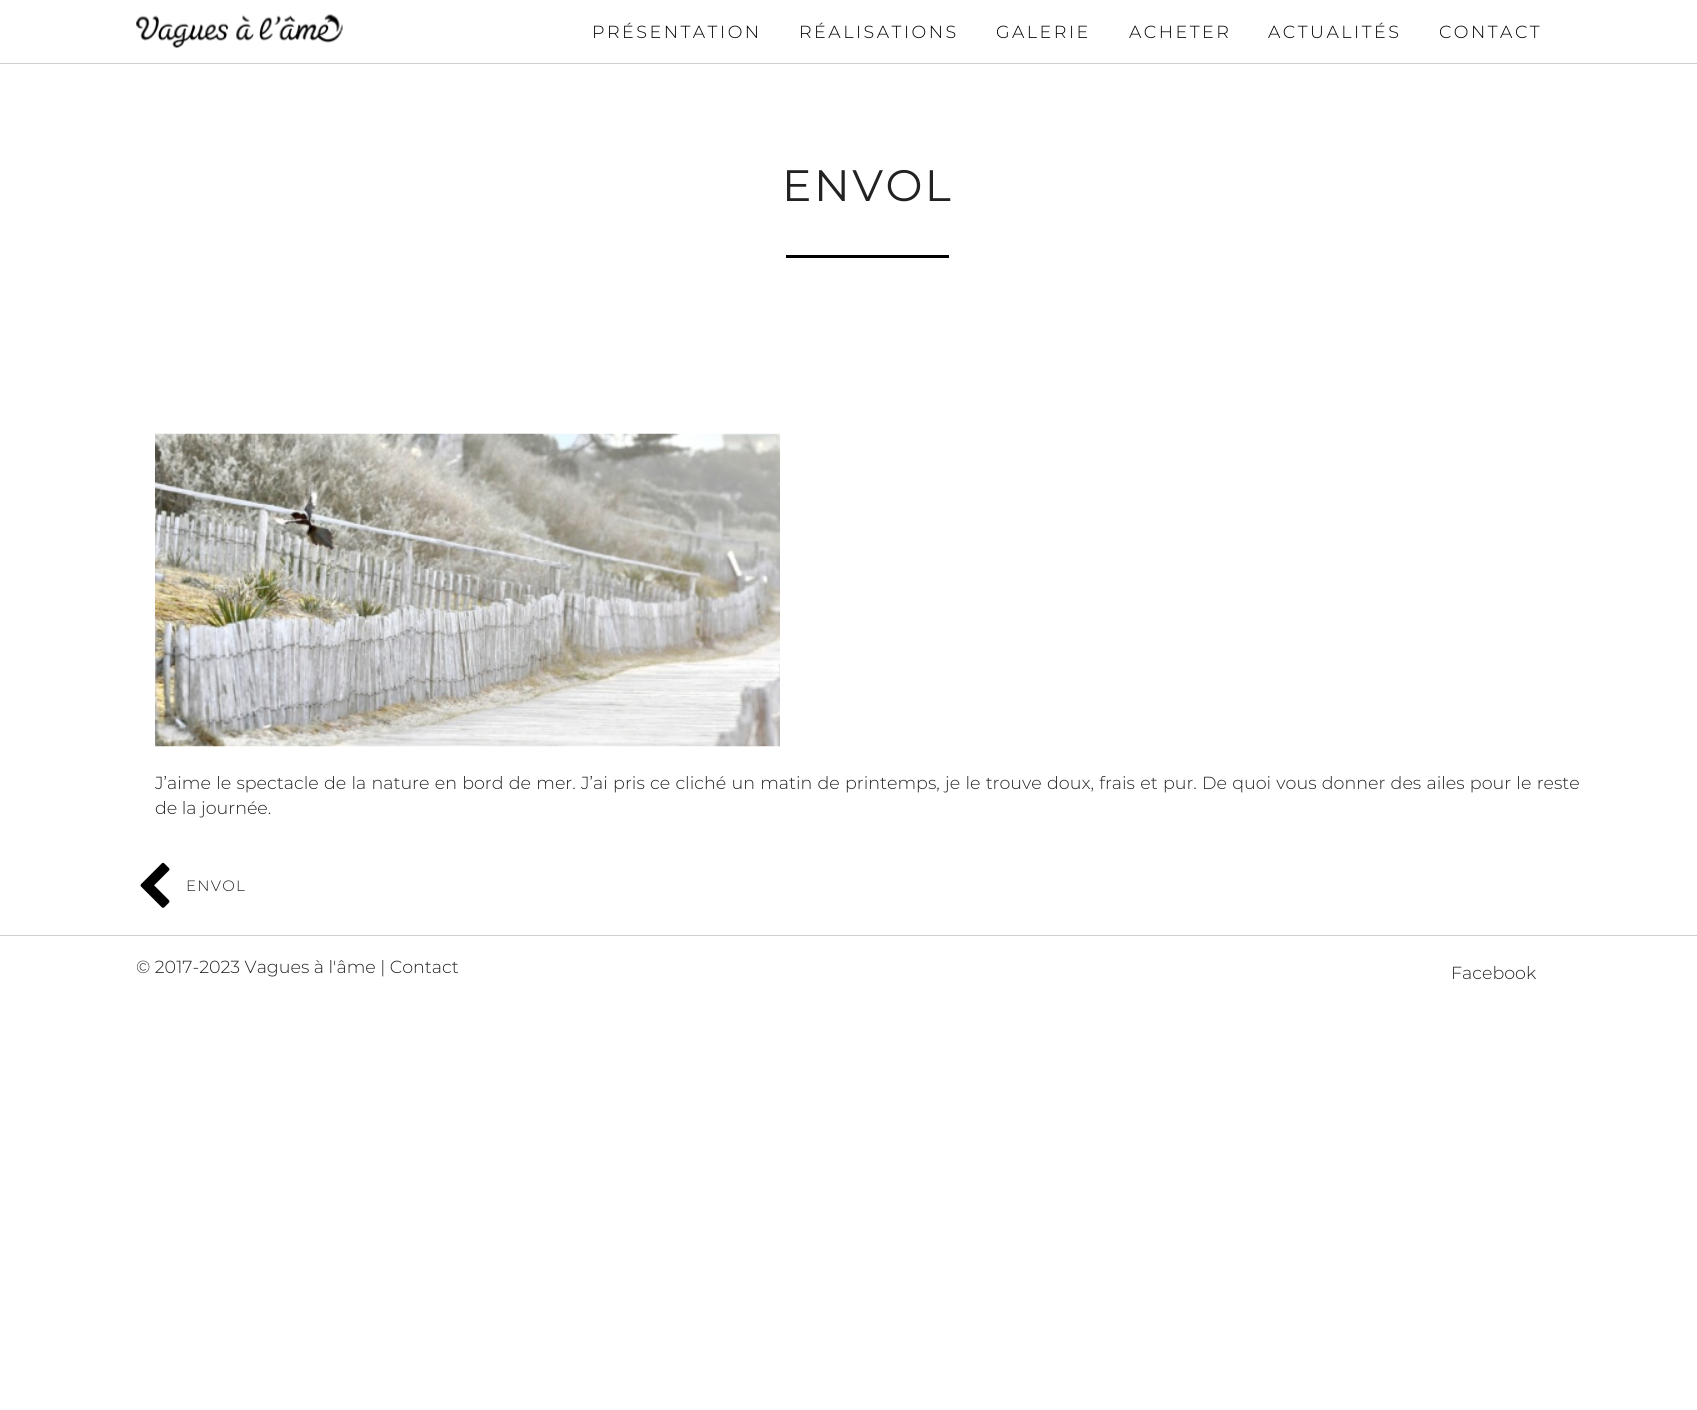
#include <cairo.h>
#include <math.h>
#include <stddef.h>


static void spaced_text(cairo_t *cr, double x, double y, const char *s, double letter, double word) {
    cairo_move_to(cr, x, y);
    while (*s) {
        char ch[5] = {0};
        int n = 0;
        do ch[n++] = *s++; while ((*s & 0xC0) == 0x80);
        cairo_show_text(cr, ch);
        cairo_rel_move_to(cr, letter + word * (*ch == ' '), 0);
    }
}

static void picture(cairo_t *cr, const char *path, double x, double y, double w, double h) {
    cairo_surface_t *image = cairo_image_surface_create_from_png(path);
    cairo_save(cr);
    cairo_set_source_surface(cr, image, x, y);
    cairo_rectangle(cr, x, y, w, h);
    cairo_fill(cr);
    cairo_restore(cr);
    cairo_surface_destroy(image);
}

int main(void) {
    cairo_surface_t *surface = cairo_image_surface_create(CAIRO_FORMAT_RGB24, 1697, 1410);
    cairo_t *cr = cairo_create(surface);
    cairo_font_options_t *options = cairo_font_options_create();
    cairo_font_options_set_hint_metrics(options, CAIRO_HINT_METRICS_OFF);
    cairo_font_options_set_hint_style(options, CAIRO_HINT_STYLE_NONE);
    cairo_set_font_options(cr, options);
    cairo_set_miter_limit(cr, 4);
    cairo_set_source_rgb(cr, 1, 1, 1);
    cairo_paint(cr);
    cairo_set_source_rgb(cr, 0.82, 0.82, 0.82);
    cairo_rectangle(cr, 0, 63, 1697, 1);
    cairo_fill(cr);
    picture(cr, "img1.png", 136, 14, 207, 34);
    cairo_select_font_face(cr, "Montserrat Light", CAIRO_FONT_SLANT_NORMAL, CAIRO_FONT_WEIGHT_NORMAL);
    cairo_set_font_size(cr, 17.5);
    cairo_set_source_rgb(cr, 0, 0, 0);
    spaced_text(cr, 592, 38, "PRÉSENTATION", 2.5, 0);
    spaced_text(cr, 799, 38, "RÉALISATIONS", 2.5, 0);
    spaced_text(cr, 996, 38, "GALERIE", 2.5, 0);
    spaced_text(cr, 1129, 38, "ACHETER", 2.5, 0);
    spaced_text(cr, 1268, 38, "ACTUALITÉS", 2.5, 0);
    spaced_text(cr, 1439, 38, "CONTACT", 2.5, 0);
    cairo_select_font_face(cr, "Montserrat", CAIRO_FONT_SLANT_NORMAL, CAIRO_FONT_WEIGHT_NORMAL);
    cairo_set_font_size(cr, 44);
    cairo_set_source_rgb(cr, 0.133, 0.133, 0.133);
    spaced_text(cr, 782, 201, "ENVOL", 2.5, 0);
    cairo_set_source_rgb(cr, 0, 0, 0);
    cairo_rectangle(cr, 786, 255, 163, 3);
    cairo_fill(cr);
    picture(cr, "img2.png", 155, 433, 625, 314);
    cairo_select_font_face(cr, "Montserrat Light", CAIRO_FONT_SLANT_NORMAL, CAIRO_FONT_WEIGHT_NORMAL);
    cairo_set_font_size(cr, 17.5);
    cairo_set_source_rgb(cr, 0.133, 0.133, 0.133);
    spaced_text(cr, 155, 789, "J’aime le spectacle de la nature en bord de mer. J’ai pris ce cliché un matin de printemps, je le trouve doux, frais et pur. De quoi vous donner des ailes pour le reste", 0, 0.75);
    cairo_move_to(cr, 155, 814);
    cairo_show_text(cr, "de la journée.");
    picture(cr, "img3.png", 140, 862, 30, 46);
    cairo_set_font_size(cr, 15);
    spaced_text(cr, 186, 891, "ENVOL", 1.25, 0);
    cairo_set_source_rgb(cr, 0.82, 0.82, 0.82);
    cairo_rectangle(cr, 0, 935, 1697, 1);
    cairo_fill(cr);
    cairo_set_font_size(cr, 17.5);
    cairo_set_source_rgb(cr, 0.133, 0.133, 0.133);
    cairo_move_to(cr, 136, 973);
    cairo_show_text(cr, "© 2017-2023 Vagues à l'âme | Contact");
    cairo_move_to(cr, 1451, 979);
    cairo_show_text(cr, "Facebook");
    cairo_surface_write_to_png(surface, "page.png");
    cairo_font_options_destroy(options);
    cairo_destroy(cr);
    cairo_surface_destroy(surface);
    return 0;
}
